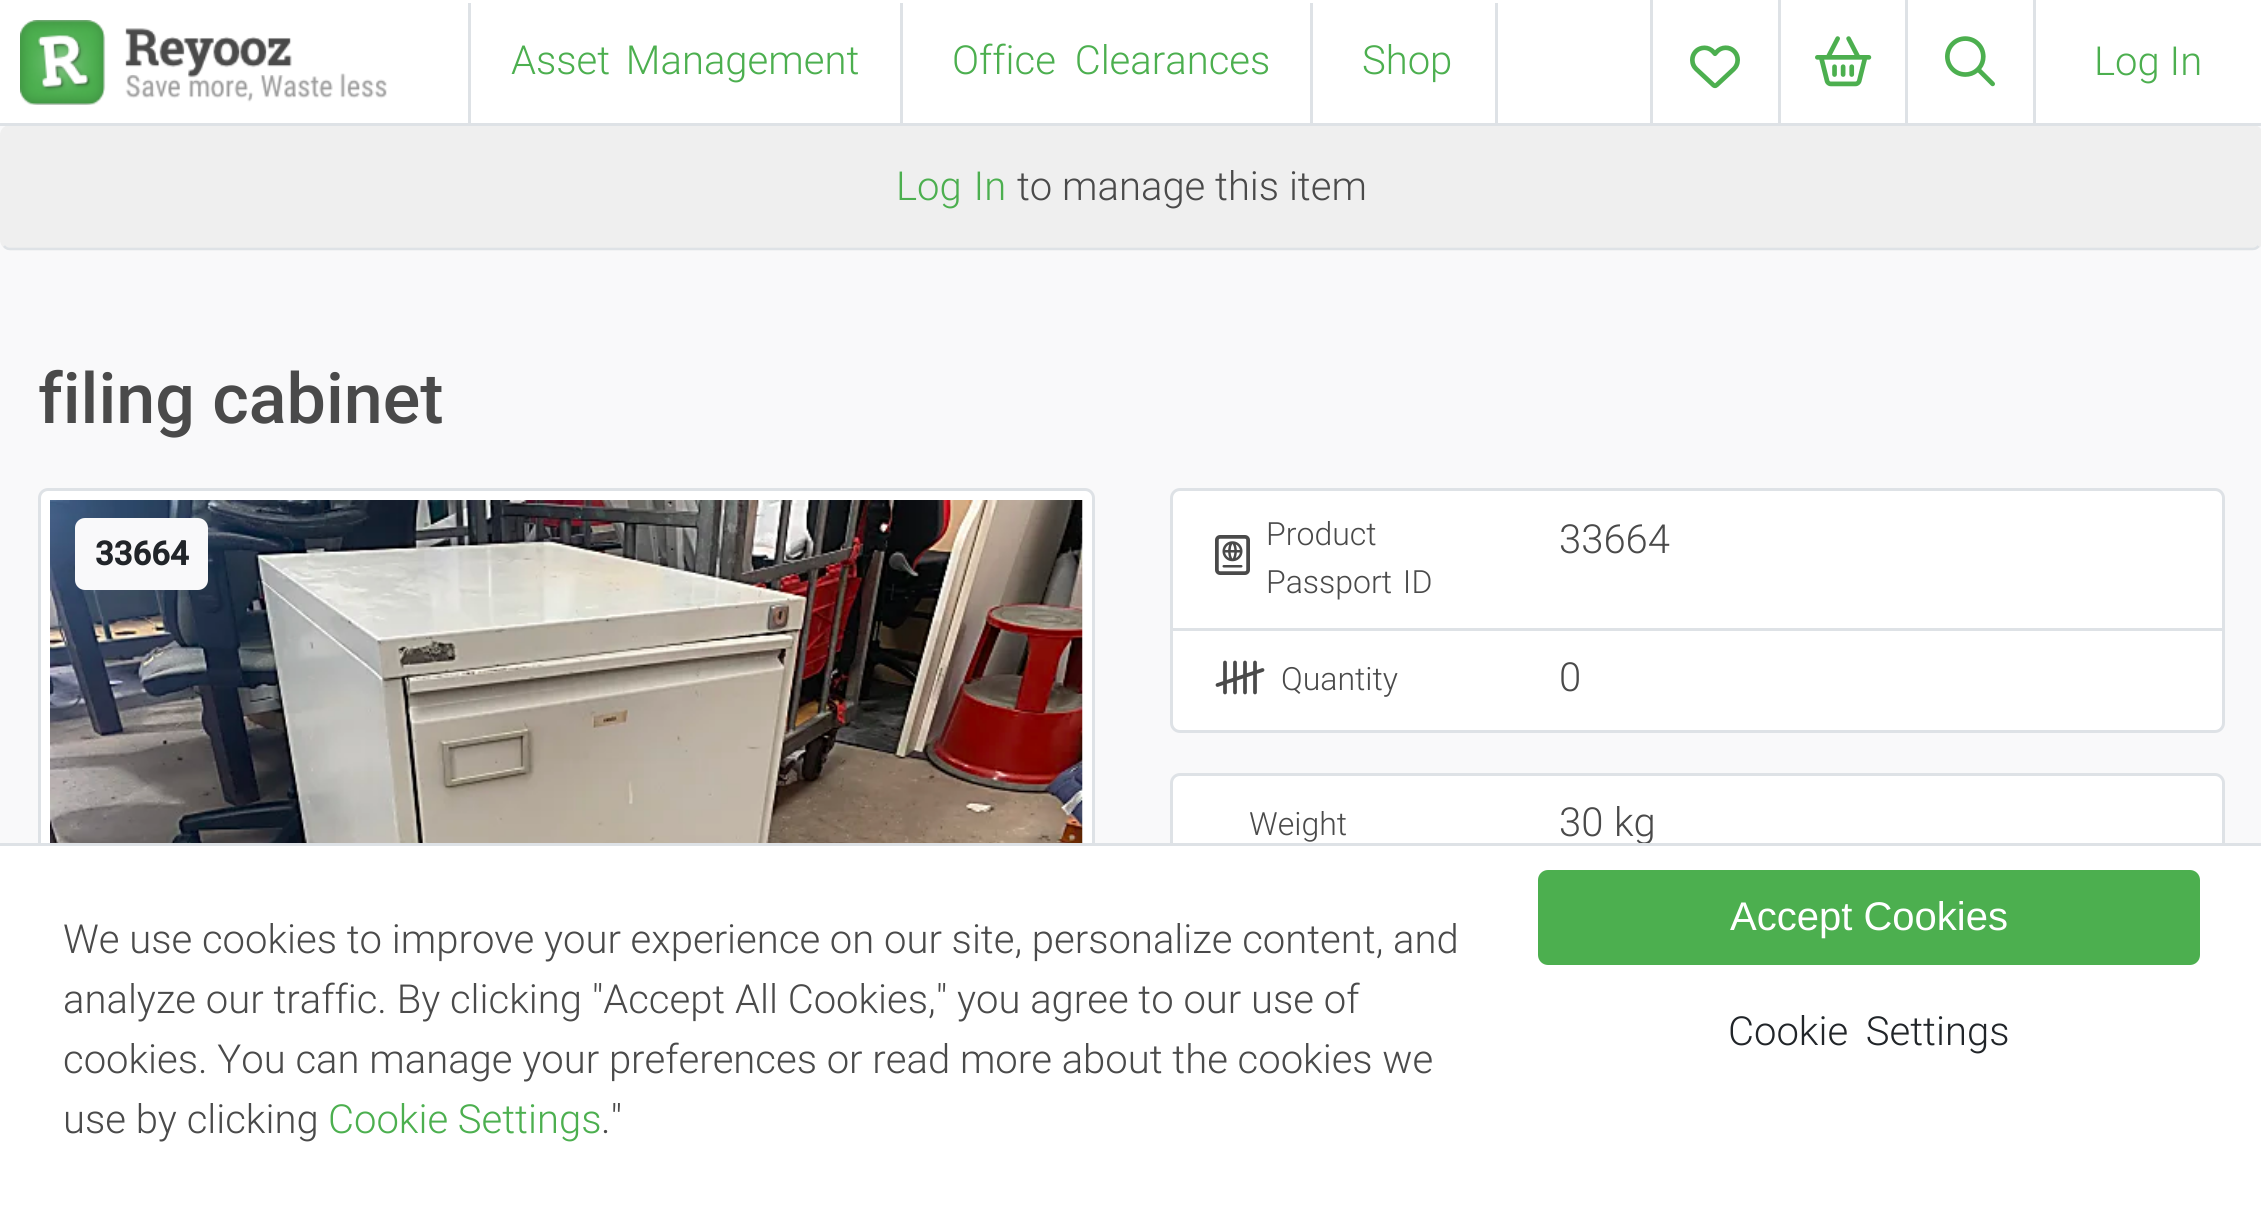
#include <cairo.h>
#include <math.h>
#include <stddef.h>


static void spaced_text(cairo_t *cr, double x, double y, const char *s, double letter, double word) {
    cairo_move_to(cr, x, y);
    while (*s) {
        char ch[5] = {0};
        int n = 0;
        do ch[n++] = *s++; while ((*s & 0xC0) == 0x80);
        cairo_show_text(cr, ch);
        cairo_rel_move_to(cr, letter + word * (*ch == ' '), 0);
    }
}

static void round_rect(cairo_t *cr, double x, double y, double w, double h, double r) {
    cairo_new_sub_path(cr);
    cairo_arc(cr, x + w - r, y + h - r, r, 0, M_PI / 2);
    cairo_arc(cr, x + r, y + h - r, r, M_PI / 2, M_PI);
    cairo_arc(cr, x + r, y + r, r, M_PI, 1.5 * M_PI);
    cairo_arc(cr, x + w - r, y + r, r, 1.5 * M_PI, 2 * M_PI);
    cairo_close_path(cr);
}

static void picture(cairo_t *cr, const char *path, double x, double y, double w, double h) {
    cairo_surface_t *image = cairo_image_surface_create_from_png(path);
    cairo_save(cr);
    cairo_set_source_surface(cr, image, x, y);
    cairo_rectangle(cr, x, y, w, h);
    cairo_fill(cr);
    cairo_restore(cr);
    cairo_surface_destroy(image);
}

int main(void) {
    cairo_surface_t *surface = cairo_image_surface_create(CAIRO_FORMAT_RGB24, 2261, 1214);
    cairo_t *cr = cairo_create(surface);
    cairo_font_options_t *options = cairo_font_options_create();
    cairo_font_options_set_hint_metrics(options, CAIRO_HINT_METRICS_OFF);
    cairo_font_options_set_hint_style(options, CAIRO_HINT_STYLE_NONE);
    cairo_set_font_options(cr, options);
    cairo_set_miter_limit(cr, 4);
    cairo_set_source_rgb(cr, 0.973, 0.976, 0.98);
    cairo_paint(cr);
    cairo_set_source_rgb(cr, 1, 1, 1);
    cairo_rectangle(cr, 0, 0, 2261, 123);
    cairo_fill(cr);
    cairo_set_source_rgb(cr, 0.937, 0.937, 0.937);
    round_rect(cr, 0, 125, 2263, 125, 10);
    cairo_fill(cr);
    cairo_set_source_rgb(cr, 0.871, 0.886, 0.902);
    cairo_rectangle(cr, 0, 123, 2261, 3);
    cairo_fill(cr);
    picture(cr, "img1.png", 20, 20, 367, 85);
    cairo_rectangle(cr, 468, 3, 3, 122);
    cairo_fill(cr);
    cairo_rectangle(cr, 900, 3, 3, 122);
    cairo_fill(cr);
    cairo_select_font_face(cr, "Roboto Light", CAIRO_FONT_SLANT_NORMAL, CAIRO_FONT_WEIGHT_NORMAL);
    cairo_set_font_size(cr, 40);
    cairo_set_source_rgb(cr, 0.298, 0.686, 0.31);
    spaced_text(cr, 511, 74, "Asset Management", 0, 6);
    cairo_set_source_rgb(cr, 0.871, 0.886, 0.902);
    cairo_rectangle(cr, 1310, 3, 3, 122);
    cairo_fill(cr);
    cairo_set_source_rgb(cr, 0.298, 0.686, 0.31);
    spaced_text(cr, 952, 74, "Office Clearances", 0, 9);
    cairo_set_source_rgb(cr, 0.871, 0.886, 0.902);
    cairo_rectangle(cr, 1495, 3, 3, 122);
    cairo_fill(cr);
    cairo_set_source_rgb(cr, 0.298, 0.686, 0.31);
    cairo_move_to(cr, 1362, 74);
    cairo_show_text(cr, "Shop");
    cairo_set_source_rgb(cr, 0.871, 0.886, 0.902);
    cairo_rectangle(cr, 1650, 0, 3, 125);
    cairo_fill(cr);
    picture(cr, "img2.png", 1690, 45, 50, 44);
    cairo_rectangle(cr, 1778, 0, 3, 125);
    cairo_fill(cr);
    picture(cr, "img3.png", 1815, 36, 57, 51);
    cairo_rectangle(cr, 1905, 0, 3, 125);
    cairo_fill(cr);
    picture(cr, "img4.png", 1945, 36, 50, 51);
    cairo_rectangle(cr, 2033, 0, 3, 125);
    cairo_fill(cr);
    cairo_set_source_rgb(cr, 0.298, 0.686, 0.31);
    cairo_move_to(cr, 2094, 75);
    cairo_show_text(cr, "Log In");
    cairo_new_path(cr);
    cairo_move_to(cr, 2258.5, 246);
    cairo_curve_to(cr, 2257, 248, 2255, 249, 2252.5, 249);
    cairo_line_to(cr, 10, 249);
    cairo_curve_to(cr, 7.5, 249, 5.5, 248, 4, 246);
    cairo_set_source_rgb(cr, 0.871, 0.886, 0.902);
    cairo_set_line_width(cr, 2.5);
    cairo_stroke(cr);
    cairo_set_source_rgb(cr, 0.298, 0.686, 0.31);
    spaced_text(cr, 896, 200, "Log In", 0, 2);
    cairo_set_source_rgb(cr, 0.29, 0.29, 0.29);
    cairo_move_to(cr, 1017, 200);
    cairo_show_text(cr, "to manage this item");
    cairo_select_font_face(cr, "Roboto Medium", CAIRO_FONT_SLANT_NORMAL, CAIRO_FONT_WEIGHT_NORMAL);
    cairo_set_font_size(cr, 70);
    cairo_move_to(cr, 38, 423);
    cairo_show_text(cr, "filing cabinet");
    cairo_set_source_rgb(cr, 1, 1, 1);
    round_rect(cr, 39.5, 489.5, 1054, 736, 8.5);
    cairo_fill_preserve(cr);
    cairo_set_source_rgb(cr, 0.871, 0.886, 0.902);
    cairo_set_line_width(cr, 3);
    cairo_stroke(cr);
    picture(cr, "img5.png", 50, 500, 1033, 343);
    cairo_set_source_rgb(cr, 0.973, 0.976, 0.98);
    round_rect(cr, 75, 518, 133, 72, 10);
    cairo_fill(cr);
    cairo_select_font_face(cr, "Roboto", CAIRO_FONT_SLANT_NORMAL, CAIRO_FONT_WEIGHT_BOLD);
    cairo_set_font_size(cr, 33);
    cairo_set_source_rgb(cr, 0.129, 0.145, 0.161);
    cairo_move_to(cr, 95, 565);
    cairo_show_text(cr, "33664");
    cairo_set_source_rgb(cr, 1, 1, 1);
    round_rect(cr, 1171.5, 489.5, 1052, 242, 8.5);
    cairo_fill_preserve(cr);
    cairo_set_source_rgb(cr, 0.871, 0.886, 0.902);
    cairo_stroke(cr);
    cairo_rectangle(cr, 1173, 628, 1050, 3);
    cairo_fill(cr);
    picture(cr, "img6.png", 1215, 535, 35, 40);
    cairo_select_font_face(cr, "Roboto Light", CAIRO_FONT_SLANT_NORMAL, CAIRO_FONT_WEIGHT_NORMAL);
    cairo_set_font_size(cr, 32);
    cairo_set_source_rgb(cr, 0.29, 0.29, 0.29);
    cairo_move_to(cr, 1266, 545);
    cairo_show_text(cr, "Product");
    spaced_text(cr, 1266, 593, "Passport ID", 0, 3);
    cairo_set_font_size(cr, 40);
    cairo_move_to(cr, 1559, 553);
    cairo_show_text(cr, "33664");
    picture(cr, "img7.png", 1215, 660, 50, 35);
    cairo_set_font_size(cr, 32);
    cairo_move_to(cr, 1281, 690);
    cairo_show_text(cr, "Quantity");
    cairo_set_font_size(cr, 40);
    cairo_move_to(cr, 1559, 691);
    cairo_show_text(cr, "0");
    cairo_set_source_rgb(cr, 1, 1, 1);
    round_rect(cr, 1171.5, 774.5, 1052, 239, 8.5);
    cairo_fill_preserve(cr);
    cairo_set_source_rgb(cr, 0.871, 0.886, 0.902);
    cairo_stroke(cr);
    cairo_set_font_size(cr, 32);
    cairo_set_source_rgb(cr, 0.29, 0.29, 0.29);
    cairo_move_to(cr, 1249, 835);
    cairo_show_text(cr, "Weight");
    cairo_set_font_size(cr, 40);
    cairo_move_to(cr, 1559, 836);
    cairo_show_text(cr, "30");
    cairo_move_to(cr, 1614, 836);
    cairo_show_text(cr, "kg");
    cairo_set_source_rgb(cr, 1, 1, 1);
    cairo_rectangle(cr, 0, 846, 2261, 368);
    cairo_fill(cr);
    cairo_set_source_rgb(cr, 0.871, 0.886, 0.902);
    cairo_rectangle(cr, 0, 843, 2261, 3);
    cairo_fill(cr);
    cairo_set_source_rgb(cr, 0.29, 0.29, 0.29);
    cairo_move_to(cr, 63, 953);
    cairo_show_text(cr, "We use cookies to improve your experience on our site, personalize content, and");
    cairo_move_to(cr, 63, 1013);
    cairo_show_text(cr, "analyze our traffic. By clicking \"Accept All Cookies,\" you agree to our use of");
    cairo_move_to(cr, 63, 1073);
    cairo_show_text(cr, "cookies. You can manage your preferences or read more about the cookies we");
    cairo_move_to(cr, 63, 1133);
    cairo_show_text(cr, "use by clicking");
    cairo_set_source_rgb(cr, 0.298, 0.686, 0.31);
    cairo_move_to(cr, 328, 1133);
    cairo_show_text(cr, "Cookie Settings");
    cairo_set_source_rgb(cr, 0.29, 0.29, 0.29);
    cairo_move_to(cr, 601, 1133);
    cairo_show_text(cr, ".\"");
    cairo_set_source_rgb(cr, 0.298, 0.686, 0.31);
    round_rect(cr, 1539.5, 871.5, 659, 92, 8.5);
    cairo_fill_preserve(cr);
    cairo_stroke(cr);
    cairo_select_font_face(cr, "Liberation Sans", CAIRO_FONT_SLANT_NORMAL, CAIRO_FONT_WEIGHT_NORMAL);
    cairo_set_source_rgb(cr, 1, 1, 1);
    cairo_move_to(cr, 1730, 930);
    cairo_show_text(cr, "Accept Cookies");
    cairo_select_font_face(cr, "Roboto Light", CAIRO_FONT_SLANT_NORMAL, CAIRO_FONT_WEIGHT_NORMAL);
    cairo_set_source_rgb(cr, 0.129, 0.145, 0.161);
    spaced_text(cr, 1728, 1045, "Cookie Settings", 0, 8);
    cairo_surface_write_to_png(surface, "page.png");
    cairo_font_options_destroy(options);
    cairo_destroy(cr);
    cairo_surface_destroy(surface);
    return 0;
}
